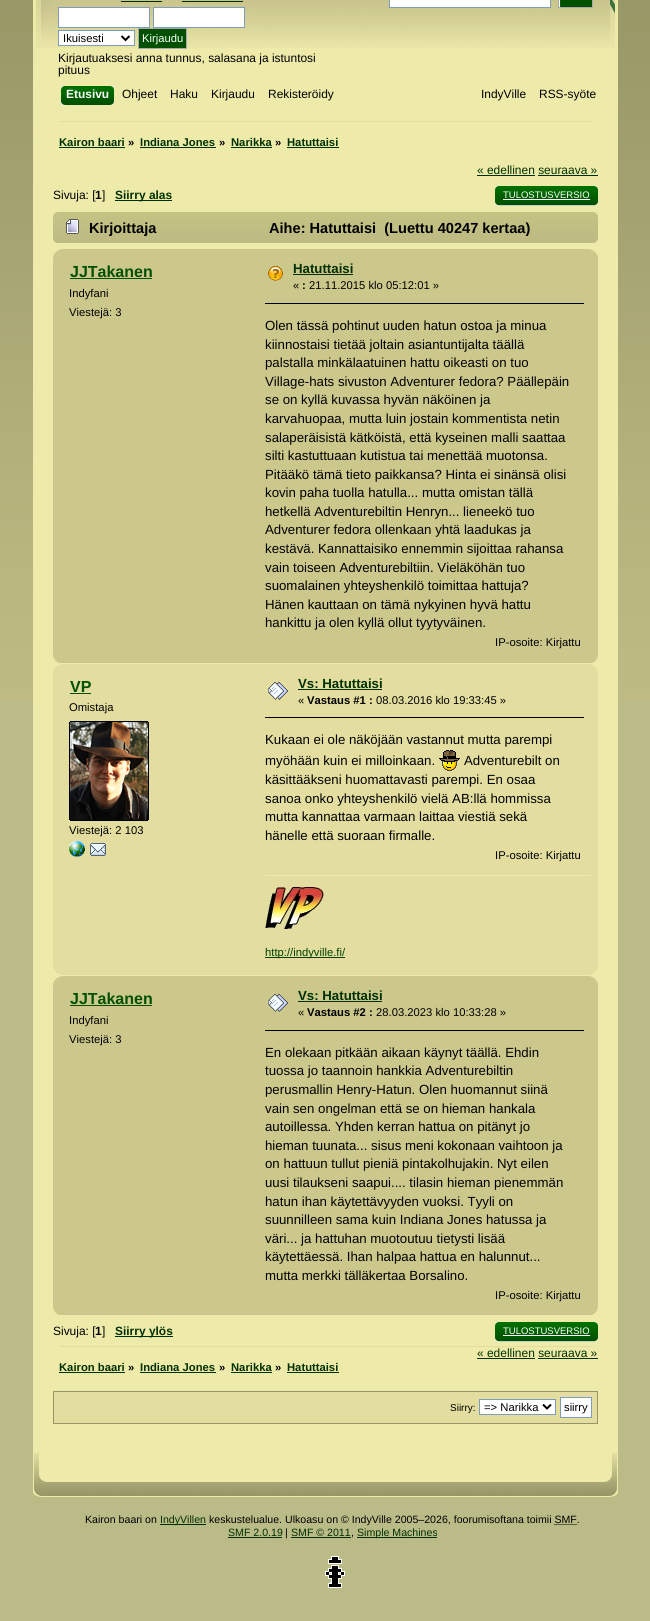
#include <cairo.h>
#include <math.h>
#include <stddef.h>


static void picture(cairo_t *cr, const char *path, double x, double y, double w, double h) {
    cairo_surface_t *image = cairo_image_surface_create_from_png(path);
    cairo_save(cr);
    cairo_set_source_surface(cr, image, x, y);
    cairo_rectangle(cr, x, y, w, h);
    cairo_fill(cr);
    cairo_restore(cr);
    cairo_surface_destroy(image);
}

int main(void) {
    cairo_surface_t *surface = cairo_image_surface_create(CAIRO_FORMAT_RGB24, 650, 1621);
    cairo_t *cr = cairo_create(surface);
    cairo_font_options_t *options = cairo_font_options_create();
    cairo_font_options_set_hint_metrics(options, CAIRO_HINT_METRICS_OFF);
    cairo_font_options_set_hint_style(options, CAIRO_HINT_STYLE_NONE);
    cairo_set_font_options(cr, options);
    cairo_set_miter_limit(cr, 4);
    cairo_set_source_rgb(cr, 0.733, 0.733, 0.533);
    cairo_paint(cr);
    picture(cr, "img1.png", 0, 0, 650, 701);
    cairo_set_source_rgb(cr, 0.933, 0.918, 0.667);
    cairo_rectangle(cr, 33, 0, 585, 1453);
    cairo_fill(cr);
    picture(cr, "img2.png", 36, 0, 582, 48);
    picture(cr, "img3.png", 610, 0, 8, 47);
    cairo_set_source_rgb(cr, 1, 1, 1);
    cairo_rectangle(cr, 389.5, -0.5, 161, 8);
    cairo_fill_preserve(cr);
    cairo_set_source_rgb(cr, 0.498, 0.616, 0.725);
    cairo_set_line_width(cr, 1);
    cairo_stroke(cr);
    picture(cr, "img4.png", 559, 0, 33, 7);
    cairo_rectangle(cr, 558.5, -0.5, 34, 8);
    cairo_set_source_rgb(cr, 0.667, 0.667, 0.667);
    cairo_stroke(cr);
    cairo_set_source_rgb(cr, 0, 0.188, 0);
    cairo_rectangle(cr, 121, 1, 41, 1);
    cairo_fill(cr);
    cairo_rectangle(cr, 182, 1, 61, 1);
    cairo_fill(cr);
    cairo_set_source_rgb(cr, 1, 1, 1);
    cairo_rectangle(cr, 58.5, 7.5, 91, 20);
    cairo_fill_preserve(cr);
    cairo_set_source_rgb(cr, 0.498, 0.616, 0.725);
    cairo_stroke(cr);
    cairo_set_source_rgb(cr, 1, 1, 1);
    cairo_rectangle(cr, 153.5, 7.5, 91, 20);
    cairo_fill_preserve(cr);
    cairo_set_source_rgb(cr, 0.498, 0.616, 0.725);
    cairo_stroke(cr);
    cairo_set_source_rgb(cr, 1, 1, 1);
    cairo_rectangle(cr, 58.5, 30.5, 76, 15);
    cairo_fill_preserve(cr);
    cairo_set_source_rgb(cr, 0.498, 0.616, 0.725);
    cairo_stroke(cr);
    cairo_new_path(cr);
    cairo_move_to(cr, 121.5, 36);
    cairo_line_to(cr, 125.5, 40);
    cairo_line_to(cr, 129.5, 36);
    cairo_set_source_rgb(cr, 0, 0, 0);
    cairo_set_line_width(cr, 2);
    cairo_stroke(cr);
    cairo_select_font_face(cr, "Liberation Sans", CAIRO_FONT_SLANT_NORMAL, CAIRO_FONT_WEIGHT_NORMAL);
    cairo_set_font_size(cr, 11.25);
    cairo_move_to(cr, 63, 42);
    cairo_show_text(cr, "Ikuisesti");
    cairo_set_source_rgb(cr, 0, 0.314, 0);
    cairo_rectangle(cr, 138.5, 28.5, 48, 20);
    cairo_fill_preserve(cr);
    cairo_set_source_rgb(cr, 0.667, 0.667, 0.667);
    cairo_set_line_width(cr, 1);
    cairo_stroke(cr);
    cairo_set_source_rgb(cr, 1, 1, 1);
    cairo_move_to(cr, 142, 42);
    cairo_show_text(cr, "Kirjaudu");
    cairo_set_font_size(cr, 11.95);
    cairo_set_source_rgb(cr, 0, 0, 0);
    cairo_move_to(cr, 58, 62);
    cairo_show_text(cr, "Kirjautuaksesi anna tunnus, salasana ja istuntosi");
    cairo_move_to(cr, 58, 74);
    cairo_show_text(cr, "pituus");
    picture(cr, "img5.png", 66, 86, 48, 19);
    picture(cr, "img6.png", 61, 86, 5, 19);
    cairo_select_font_face(cr, "Liberation Sans", CAIRO_FONT_SLANT_NORMAL, CAIRO_FONT_WEIGHT_BOLD);
    cairo_set_source_rgb(cr, 1, 1, 1);
    cairo_move_to(cr, 66, 98);
    cairo_show_text(cr, "Etusivu");
    cairo_select_font_face(cr, "Liberation Sans", CAIRO_FONT_SLANT_NORMAL, CAIRO_FONT_WEIGHT_NORMAL);
    cairo_set_source_rgb(cr, 0, 0, 0);
    cairo_move_to(cr, 122, 98);
    cairo_show_text(cr, "Ohjeet");
    cairo_move_to(cr, 170, 98);
    cairo_show_text(cr, "Haku");
    cairo_move_to(cr, 211, 98);
    cairo_show_text(cr, "Kirjaudu");
    cairo_move_to(cr, 268, 98);
    cairo_show_text(cr, "Rekisteröidy");
    cairo_move_to(cr, 481, 98);
    cairo_show_text(cr, "IndyVille");
    cairo_move_to(cr, 539, 98);
    cairo_show_text(cr, "RSS-syöte");
    cairo_set_source_rgb(cr, 0.89, 0.871, 0.624);
    cairo_rectangle(cr, 59, 121, 532, 1);
    cairo_fill(cr);
    cairo_select_font_face(cr, "Liberation Sans", CAIRO_FONT_SLANT_NORMAL, CAIRO_FONT_WEIGHT_BOLD);
    cairo_set_font_size(cr, 11.25);
    cairo_set_source_rgb(cr, 0, 0.188, 0);
    cairo_move_to(cr, 59, 146);
    cairo_show_text(cr, "Kairon baari");
    cairo_rectangle(cr, 59, 147, 66, 1);
    cairo_fill(cr);
    cairo_set_source_rgb(cr, 0, 0, 0);
    cairo_move_to(cr, 128, 146);
    cairo_show_text(cr, "»");
    cairo_set_source_rgb(cr, 0, 0.188, 0);
    cairo_move_to(cr, 140, 146);
    cairo_show_text(cr, "Indiana Jones");
    cairo_rectangle(cr, 140, 147, 76, 1);
    cairo_fill(cr);
    cairo_set_source_rgb(cr, 0, 0, 0);
    cairo_move_to(cr, 219, 146);
    cairo_show_text(cr, "»");
    cairo_set_source_rgb(cr, 0, 0.188, 0);
    cairo_move_to(cr, 231, 146);
    cairo_show_text(cr, "Narikka");
    cairo_rectangle(cr, 231, 147, 41, 1);
    cairo_fill(cr);
    cairo_set_source_rgb(cr, 0, 0, 0);
    cairo_move_to(cr, 275, 146);
    cairo_show_text(cr, "»");
    cairo_set_source_rgb(cr, 0, 0.188, 0);
    cairo_move_to(cr, 287, 146);
    cairo_show_text(cr, "Hatuttaisi");
    cairo_rectangle(cr, 287, 147, 52, 1);
    cairo_fill(cr);
    cairo_select_font_face(cr, "Liberation Sans", CAIRO_FONT_SLANT_NORMAL, CAIRO_FONT_WEIGHT_NORMAL);
    cairo_set_font_size(cr, 11.95);
    cairo_move_to(cr, 477, 174);
    cairo_show_text(cr, "« edellinen seuraava »");
    cairo_rectangle(cr, 477, 175, 58, 1);
    cairo_fill(cr);
    cairo_rectangle(cr, 538, 175, 60, 1);
    cairo_fill(cr);
    cairo_set_source_rgb(cr, 0, 0, 0);
    cairo_move_to(cr, 53, 199);
    cairo_show_text(cr, "Sivuja: [");
    cairo_select_font_face(cr, "Liberation Sans", CAIRO_FONT_SLANT_NORMAL, CAIRO_FONT_WEIGHT_BOLD);
    cairo_move_to(cr, 95, 199);
    cairo_show_text(cr, "1");
    cairo_select_font_face(cr, "Liberation Sans", CAIRO_FONT_SLANT_NORMAL, CAIRO_FONT_WEIGHT_NORMAL);
    cairo_move_to(cr, 102, 199);
    cairo_show_text(cr, "]");
    cairo_set_source_rgb(cr, 0, 0.188, 0);
    cairo_rectangle(cr, 115, 200, 57, 1);
    cairo_fill(cr);
    cairo_select_font_face(cr, "Liberation Sans", CAIRO_FONT_SLANT_NORMAL, CAIRO_FONT_WEIGHT_BOLD);
    cairo_move_to(cr, 115, 199);
    cairo_show_text(cr, "Siirry alas");
    picture(cr, "img7.png", 495, 186, 8, 20);
    picture(cr, "img8.png", 503, 186, 95, 20);
    cairo_select_font_face(cr, "Liberation Sans", CAIRO_FONT_SLANT_NORMAL, CAIRO_FONT_WEIGHT_NORMAL);
    cairo_set_font_size(cr, 9.5);
    cairo_set_source_rgb(cr, 1, 1, 1);
    cairo_move_to(cr, 503, 198);
    cairo_show_text(cr, "TULOSTUSVERSIO");
    cairo_rectangle(cr, 503, 199, 1, 1);
    cairo_fill(cr);
    picture(cr, "img9.png", 53, 212, 9, 31);
    picture(cr, "img10.png", 62, 212, 536, 31);
    picture(cr, "img11.png", 66, 219, 13, 15);
    cairo_select_font_face(cr, "Liberation Sans", CAIRO_FONT_SLANT_NORMAL, CAIRO_FONT_WEIGHT_BOLD);
    cairo_set_font_size(cr, 14.6);
    cairo_set_source_rgb(cr, 0, 0, 0);
    cairo_move_to(cr, 89, 233);
    cairo_show_text(cr, "Kirjoittaja");
    cairo_move_to(cr, 269, 233);
    cairo_show_text(cr, "Aihe: Hatuttaisi  (Luettu 40247 kertaa)");
    cairo_set_source_rgb(cr, 0.8, 0.784, 0.549);
    cairo_rectangle(cr, 53, 249, 545, 414);
    cairo_fill(cr);
    picture(cr, "img12.png", 53, 249, 9, 9);
    picture(cr, "img13.png", 589, 249, 9, 8);
    cairo_set_font_size(cr, 16);
    cairo_set_source_rgb(cr, 0, 0.314, 0);
    cairo_move_to(cr, 70, 277);
    cairo_show_text(cr, "JJTakanen");
    cairo_rectangle(cr, 70, 278, 82, 1);
    cairo_fill(cr);
    cairo_select_font_face(cr, "Liberation Sans", CAIRO_FONT_SLANT_NORMAL, CAIRO_FONT_WEIGHT_NORMAL);
    cairo_set_font_size(cr, 11.25);
    cairo_set_source_rgb(cr, 0, 0, 0);
    cairo_move_to(cr, 69, 297);
    cairo_show_text(cr, "Indyfani");
    cairo_move_to(cr, 69, 316);
    cairo_show_text(cr, "Viestejä: 3");
    picture(cr, "img14.png", 268, 266, 15, 15);
    cairo_select_font_face(cr, "Liberation Sans", CAIRO_FONT_SLANT_NORMAL, CAIRO_FONT_WEIGHT_BOLD);
    cairo_set_font_size(cr, 13.25);
    cairo_set_source_rgb(cr, 0, 0.188, 0);
    cairo_move_to(cr, 293, 273);
    cairo_show_text(cr, "Hatuttaisi");
    cairo_rectangle(cr, 293, 274, 60, 1);
    cairo_fill(cr);
    cairo_select_font_face(cr, "Liberation Sans", CAIRO_FONT_SLANT_NORMAL, CAIRO_FONT_WEIGHT_NORMAL);
    cairo_set_font_size(cr, 11.25);
    cairo_set_source_rgb(cr, 0, 0, 0);
    cairo_move_to(cr, 293, 289);
    cairo_show_text(cr, "«");
    cairo_select_font_face(cr, "Liberation Sans", CAIRO_FONT_SLANT_NORMAL, CAIRO_FONT_WEIGHT_BOLD);
    cairo_move_to(cr, 302, 289);
    cairo_show_text(cr, ":");
    cairo_select_font_face(cr, "Liberation Sans", CAIRO_FONT_SLANT_NORMAL, CAIRO_FONT_WEIGHT_NORMAL);
    cairo_move_to(cr, 309, 289);
    cairo_show_text(cr, "21.11.2015 klo 05:12:01 »");
    cairo_rectangle(cr, 265, 303, 319, 1);
    cairo_fill(cr);
    cairo_set_font_size(cr, 13.25);
    cairo_move_to(cr, 265, 330);
    cairo_show_text(cr, "Olen tässä pohtinut uuden hatun ostoa ja minua");
    cairo_move_to(cr, 265, 349);
    cairo_show_text(cr, "kiinnostaisi tietää joltain asiantuntijalta täällä");
    cairo_move_to(cr, 265, 367);
    cairo_show_text(cr, "palstalla minkälaatuinen hattu oikeasti on tuo");
    cairo_move_to(cr, 265, 386);
    cairo_show_text(cr, "Village-hats sivuston Adventurer fedora? Päällepäin");
    cairo_move_to(cr, 265, 404);
    cairo_show_text(cr, "se on kyllä kuvassa hyvän näköinen ja");
    cairo_move_to(cr, 265, 423);
    cairo_show_text(cr, "karvahuopaa, mutta luin jostain kommentista netin");
    cairo_move_to(cr, 265, 442);
    cairo_show_text(cr, "salaperäisistä kätköistä, että kyseinen malli saattaa");
    cairo_move_to(cr, 265, 460);
    cairo_show_text(cr, "silti kastuttuaan kutistua tai menettää muotonsa.");
    cairo_move_to(cr, 265, 479);
    cairo_show_text(cr, "Pitääkö tämä tieto paikkansa? Hinta ei sinänsä olisi");
    cairo_move_to(cr, 265, 497);
    cairo_show_text(cr, "kovin paha tuolla hatulla... mutta omistan tällä");
    cairo_move_to(cr, 265, 516);
    cairo_show_text(cr, "hetkellä Adventurebiltin Henryn... lieneekö tuo");
    cairo_move_to(cr, 265, 534);
    cairo_show_text(cr, "Adventurer fedora ollenkaan yhtä laadukas ja");
    cairo_move_to(cr, 265, 553);
    cairo_show_text(cr, "kestävä. Kannattaisiko ennemmin sijoittaa rahansa");
    cairo_move_to(cr, 265, 572);
    cairo_show_text(cr, "vain toiseen Adventurebiltiin. Vieläköhän tuo");
    cairo_move_to(cr, 265, 590);
    cairo_show_text(cr, "suomalainen yhteyshenkilö toimittaa hattuja?");
    cairo_move_to(cr, 265, 609);
    cairo_show_text(cr, "Hänen kauttaan on tämä nykyinen hyvä hattu");
    cairo_move_to(cr, 265, 627);
    cairo_show_text(cr, "hankittu ja olen kyllä ollut tyytyväinen.");
    cairo_set_font_size(cr, 11.25);
    cairo_move_to(cr, 495, 646);
    cairo_show_text(cr, "IP-osoite: Kirjattu");
    picture(cr, "img15.png", 53, 655, 6, 8);
    picture(cr, "img16.png", 592, 655, 6, 8);
    cairo_set_source_rgb(cr, 0.89, 0.871, 0.624);
    cairo_rectangle(cr, 53, 664, 545, 311);
    cairo_fill(cr);
    picture(cr, "img17.png", 53, 664, 8, 8);
    picture(cr, "img18.png", 590, 664, 8, 8);
    cairo_select_font_face(cr, "Liberation Sans", CAIRO_FONT_SLANT_NORMAL, CAIRO_FONT_WEIGHT_BOLD);
    cairo_set_font_size(cr, 16);
    cairo_set_source_rgb(cr, 0, 0.314, 0);
    cairo_move_to(cr, 70, 692);
    cairo_show_text(cr, "VP");
    cairo_rectangle(cr, 70, 693, 21, 1);
    cairo_fill(cr);
    cairo_select_font_face(cr, "Liberation Sans", CAIRO_FONT_SLANT_NORMAL, CAIRO_FONT_WEIGHT_NORMAL);
    cairo_set_font_size(cr, 11.25);
    cairo_set_source_rgb(cr, 0, 0, 0);
    cairo_move_to(cr, 69, 711);
    cairo_show_text(cr, "Omistaja");
    picture(cr, "img19.png", 69, 721, 80, 100);
    cairo_move_to(cr, 69, 834);
    cairo_show_text(cr, "Viestejä: 2 103");
    picture(cr, "img20.png", 69, 841, 16, 16);
    picture(cr, "img21.png", 90, 843, 16, 13);
    picture(cr, "img22.png", 268, 682, 20, 18);
    cairo_select_font_face(cr, "Liberation Sans", CAIRO_FONT_SLANT_NORMAL, CAIRO_FONT_WEIGHT_BOLD);
    cairo_set_font_size(cr, 13.25);
    cairo_set_source_rgb(cr, 0, 0.188, 0);
    cairo_move_to(cr, 298, 688);
    cairo_show_text(cr, "Vs: Hatuttaisi");
    cairo_rectangle(cr, 298, 689, 84, 1);
    cairo_fill(cr);
    cairo_select_font_face(cr, "Liberation Sans", CAIRO_FONT_SLANT_NORMAL, CAIRO_FONT_WEIGHT_NORMAL);
    cairo_set_font_size(cr, 11.25);
    cairo_set_source_rgb(cr, 0, 0, 0);
    cairo_move_to(cr, 298, 704);
    cairo_show_text(cr, "«");
    cairo_select_font_face(cr, "Liberation Sans", CAIRO_FONT_SLANT_NORMAL, CAIRO_FONT_WEIGHT_BOLD);
    cairo_move_to(cr, 307, 704);
    cairo_show_text(cr, "Vastaus #1 :");
    cairo_select_font_face(cr, "Liberation Sans", CAIRO_FONT_SLANT_NORMAL, CAIRO_FONT_WEIGHT_NORMAL);
    cairo_move_to(cr, 376, 704);
    cairo_show_text(cr, "08.03.2016 klo 19:33:45 »");
    cairo_rectangle(cr, 265, 717, 319, 1);
    cairo_fill(cr);
    cairo_set_font_size(cr, 13.25);
    cairo_move_to(cr, 265, 744);
    cairo_show_text(cr, "Kukaan ei ole näköjään vastannut mutta parempi");
    cairo_move_to(cr, 265, 765);
    cairo_show_text(cr, "myöhään kuin ei milloinkaan.");
    picture(cr, "img23.png", 439, 750, 21, 21);
    cairo_move_to(cr, 464, 765);
    cairo_show_text(cr, "Adventurebilt on");
    cairo_move_to(cr, 265, 784);
    cairo_show_text(cr, "käsittääkseni huomattavasti parempi. En osaa");
    cairo_move_to(cr, 265, 803);
    cairo_show_text(cr, "sanoa onko yhteyshenkilö vielä AB:llä hommissa");
    cairo_move_to(cr, 265, 821);
    cairo_show_text(cr, "mutta kannattaa varmaan laittaa viestiä sekä");
    cairo_move_to(cr, 265, 840);
    cairo_show_text(cr, "hänelle että suoraan firmalle.");
    cairo_set_font_size(cr, 11.25);
    cairo_move_to(cr, 495, 859);
    cairo_show_text(cr, "IP-osoite: Kirjattu");
    cairo_set_source_rgb(cr, 0.933, 0.918, 0.667);
    cairo_rectangle(cr, 265, 875, 326, 1);
    cairo_fill(cr);
    picture(cr, "img24.png", 265, 887, 59, 42);
    cairo_set_source_rgb(cr, 0, 0.251, 0);
    cairo_rectangle(cr, 265, 957, 80, 1);
    cairo_fill(cr);
    cairo_move_to(cr, 265, 956);
    cairo_show_text(cr, "http://indyville.fi/");
    picture(cr, "img25.png", 53, 967, 8, 8);
    picture(cr, "img26.png", 590, 967, 8, 8);
    cairo_set_source_rgb(cr, 0.8, 0.784, 0.549);
    cairo_rectangle(cr, 53, 976, 545, 339);
    cairo_fill(cr);
    picture(cr, "img12.png", 53, 976, 9, 9);
    picture(cr, "img13.png", 589, 976, 9, 8);
    cairo_select_font_face(cr, "Liberation Sans", CAIRO_FONT_SLANT_NORMAL, CAIRO_FONT_WEIGHT_BOLD);
    cairo_set_font_size(cr, 16);
    cairo_set_source_rgb(cr, 0, 0.314, 0);
    cairo_move_to(cr, 70, 1004);
    cairo_show_text(cr, "JJTakanen");
    cairo_rectangle(cr, 70, 1005, 82, 1);
    cairo_fill(cr);
    cairo_select_font_face(cr, "Liberation Sans", CAIRO_FONT_SLANT_NORMAL, CAIRO_FONT_WEIGHT_NORMAL);
    cairo_set_font_size(cr, 11.25);
    cairo_set_source_rgb(cr, 0, 0, 0);
    cairo_move_to(cr, 69, 1024);
    cairo_show_text(cr, "Indyfani");
    cairo_move_to(cr, 69, 1043);
    cairo_show_text(cr, "Viestejä: 3");
    picture(cr, "img27.png", 268, 994, 20, 18);
    cairo_select_font_face(cr, "Liberation Sans", CAIRO_FONT_SLANT_NORMAL, CAIRO_FONT_WEIGHT_BOLD);
    cairo_set_font_size(cr, 13.25);
    cairo_set_source_rgb(cr, 0, 0.188, 0);
    cairo_move_to(cr, 298, 1000);
    cairo_show_text(cr, "Vs: Hatuttaisi");
    cairo_rectangle(cr, 298, 1001, 84, 1);
    cairo_fill(cr);
    cairo_select_font_face(cr, "Liberation Sans", CAIRO_FONT_SLANT_NORMAL, CAIRO_FONT_WEIGHT_NORMAL);
    cairo_set_font_size(cr, 11.25);
    cairo_set_source_rgb(cr, 0, 0, 0);
    cairo_move_to(cr, 298, 1016);
    cairo_show_text(cr, "«");
    cairo_select_font_face(cr, "Liberation Sans", CAIRO_FONT_SLANT_NORMAL, CAIRO_FONT_WEIGHT_BOLD);
    cairo_move_to(cr, 307, 1016);
    cairo_show_text(cr, "Vastaus #2 :");
    cairo_select_font_face(cr, "Liberation Sans", CAIRO_FONT_SLANT_NORMAL, CAIRO_FONT_WEIGHT_NORMAL);
    cairo_move_to(cr, 376, 1016);
    cairo_show_text(cr, "28.03.2023 klo 10:33:28 »");
    cairo_rectangle(cr, 265, 1030, 319, 1);
    cairo_fill(cr);
    cairo_set_font_size(cr, 13.25);
    cairo_move_to(cr, 265, 1057);
    cairo_show_text(cr, "En olekaan pitkään aikaan käynyt täällä. Ehdin");
    cairo_move_to(cr, 265, 1075);
    cairo_show_text(cr, "tuossa jo taannoin hankkia Adventurebiltin");
    cairo_move_to(cr, 265, 1094);
    cairo_show_text(cr, "perusmallin Henry-Hatun. Olen huomannut siinä");
    cairo_move_to(cr, 265, 1113);
    cairo_show_text(cr, "vain sen ongelman että se on hieman hankala");
    cairo_move_to(cr, 265, 1131);
    cairo_show_text(cr, "autoillessa. Yhden kerran hattua on pitänyt jo");
    cairo_move_to(cr, 265, 1150);
    cairo_show_text(cr, "hieman tuunata... sisus meni kokonaan vaihtoon ja");
    cairo_move_to(cr, 265, 1168);
    cairo_show_text(cr, "on hattuun tullut pieniä pintakolhujakin. Nyt eilen");
    cairo_move_to(cr, 265, 1187);
    cairo_show_text(cr, "uusi tilaukseni saapui.... tilasin hieman pienemmän");
    cairo_move_to(cr, 265, 1206);
    cairo_show_text(cr, "hatun ihan käytettävyyden vuoksi. Tyyli on");
    cairo_move_to(cr, 265, 1224);
    cairo_show_text(cr, "suunnilleen sama kuin Indiana Jones hatussa ja");
    cairo_move_to(cr, 265, 1243);
    cairo_show_text(cr, "väri... ja hattuhan muotoutuu tietysti lisää");
    cairo_move_to(cr, 265, 1261);
    cairo_show_text(cr, "käytettäessä. Ihan halpaa hattua en halunnut...");
    cairo_move_to(cr, 265, 1280);
    cairo_show_text(cr, "mutta merkki tälläkertaa Borsalino.");
    cairo_set_font_size(cr, 11.25);
    cairo_move_to(cr, 495, 1299);
    cairo_show_text(cr, "IP-osoite: Kirjattu");
    picture(cr, "img15.png", 53, 1307, 6, 8);
    picture(cr, "img16.png", 592, 1307, 6, 8);
    cairo_set_font_size(cr, 11.95);
    cairo_move_to(cr, 53, 1335);
    cairo_show_text(cr, "Sivuja: [");
    cairo_select_font_face(cr, "Liberation Sans", CAIRO_FONT_SLANT_NORMAL, CAIRO_FONT_WEIGHT_BOLD);
    cairo_move_to(cr, 95, 1335);
    cairo_show_text(cr, "1");
    cairo_select_font_face(cr, "Liberation Sans", CAIRO_FONT_SLANT_NORMAL, CAIRO_FONT_WEIGHT_NORMAL);
    cairo_move_to(cr, 102, 1335);
    cairo_show_text(cr, "]");
    cairo_set_source_rgb(cr, 0, 0.188, 0);
    cairo_rectangle(cr, 115, 1336, 58, 1);
    cairo_fill(cr);
    cairo_select_font_face(cr, "Liberation Sans", CAIRO_FONT_SLANT_NORMAL, CAIRO_FONT_WEIGHT_BOLD);
    cairo_move_to(cr, 115, 1335);
    cairo_show_text(cr, "Siirry ylös");
    picture(cr, "img7.png", 495, 1322, 8, 20);
    picture(cr, "img8.png", 503, 1322, 95, 20);
    cairo_select_font_face(cr, "Liberation Sans", CAIRO_FONT_SLANT_NORMAL, CAIRO_FONT_WEIGHT_NORMAL);
    cairo_set_font_size(cr, 9.5);
    cairo_set_source_rgb(cr, 1, 1, 1);
    cairo_move_to(cr, 503, 1334);
    cairo_show_text(cr, "TULOSTUSVERSIO");
    cairo_rectangle(cr, 503, 1335, 1, 1);
    cairo_fill(cr);
    cairo_set_font_size(cr, 11.95);
    cairo_set_source_rgb(cr, 0, 0.188, 0);
    cairo_move_to(cr, 477, 1357);
    cairo_show_text(cr, "« edellinen seuraava »");
    cairo_rectangle(cr, 477, 1358, 58, 1);
    cairo_fill(cr);
    cairo_rectangle(cr, 538, 1358, 60, 1);
    cairo_fill(cr);
    cairo_set_source_rgb(cr, 0.89, 0.871, 0.624);
    cairo_rectangle(cr, 59, 1346, 532, 1);
    cairo_fill(cr);
    cairo_select_font_face(cr, "Liberation Sans", CAIRO_FONT_SLANT_NORMAL, CAIRO_FONT_WEIGHT_BOLD);
    cairo_set_font_size(cr, 11.25);
    cairo_set_source_rgb(cr, 0, 0.188, 0);
    cairo_move_to(cr, 59, 1371);
    cairo_show_text(cr, "Kairon baari");
    cairo_rectangle(cr, 59, 1372, 66, 1);
    cairo_fill(cr);
    cairo_set_source_rgb(cr, 0, 0, 0);
    cairo_move_to(cr, 128, 1371);
    cairo_show_text(cr, "»");
    cairo_set_source_rgb(cr, 0, 0.188, 0);
    cairo_move_to(cr, 140, 1371);
    cairo_show_text(cr, "Indiana Jones");
    cairo_rectangle(cr, 140, 1372, 76, 1);
    cairo_fill(cr);
    cairo_set_source_rgb(cr, 0, 0, 0);
    cairo_move_to(cr, 219, 1371);
    cairo_show_text(cr, "»");
    cairo_set_source_rgb(cr, 0, 0.188, 0);
    cairo_move_to(cr, 231, 1371);
    cairo_show_text(cr, "Narikka");
    cairo_rectangle(cr, 231, 1372, 41, 1);
    cairo_fill(cr);
    cairo_set_source_rgb(cr, 0, 0, 0);
    cairo_move_to(cr, 275, 1371);
    cairo_show_text(cr, "»");
    cairo_set_source_rgb(cr, 0, 0.188, 0);
    cairo_move_to(cr, 287, 1371);
    cairo_show_text(cr, "Hatuttaisi");
    cairo_rectangle(cr, 287, 1372, 52, 1);
    cairo_fill(cr);
    cairo_set_source_rgb(cr, 0.89, 0.871, 0.624);
    cairo_rectangle(cr, 53.5, 1391.5, 544, 32);
    cairo_fill_preserve(cr);
    cairo_set_source_rgb(cr, 0.584, 0.584, 0.396);
    cairo_stroke(cr);
    cairo_select_font_face(cr, "Liberation Sans", CAIRO_FONT_SLANT_NORMAL, CAIRO_FONT_WEIGHT_NORMAL);
    cairo_set_font_size(cr, 10);
    cairo_set_source_rgb(cr, 0, 0, 0);
    cairo_move_to(cr, 450, 1411);
    cairo_show_text(cr, "Siirry:");
    cairo_set_source_rgb(cr, 1, 1, 1);
    cairo_rectangle(cr, 479.5, 1399.5, 76, 15);
    cairo_fill_preserve(cr);
    cairo_set_source_rgb(cr, 0.498, 0.616, 0.725);
    cairo_stroke(cr);
    cairo_new_path(cr);
    cairo_move_to(cr, 543, 1404.5);
    cairo_line_to(cr, 547, 1408.5);
    cairo_line_to(cr, 551, 1404.5);
    cairo_set_source_rgb(cr, 0, 0, 0);
    cairo_set_line_width(cr, 2);
    cairo_stroke(cr);
    cairo_set_font_size(cr, 11.25);
    cairo_move_to(cr, 484, 1411);
    cairo_show_text(cr, "=> Narikka");
    cairo_set_source_rgb(cr, 1, 1, 1);
    cairo_rectangle(cr, 560.5, 1397.5, 31, 20);
    cairo_fill_preserve(cr);
    cairo_set_source_rgb(cr, 0.498, 0.616, 0.725);
    cairo_set_line_width(cr, 1);
    cairo_stroke(cr);
    cairo_set_source_rgb(cr, 0, 0, 0);
    cairo_move_to(cr, 564, 1411);
    cairo_show_text(cr, "siirry");
    picture(cr, "img28.png", 33, 1453, 572, 44);
    picture(cr, "img29.png", 605, 1453, 13, 44);
    cairo_set_font_size(cr, 10.6);
    cairo_move_to(cr, 85, 1523);
    cairo_show_text(cr, "Kairon baari on");
    cairo_set_source_rgb(cr, 0, 0.188, 0);
    cairo_rectangle(cr, 160, 1524, 46, 1);
    cairo_fill(cr);
    cairo_move_to(cr, 160, 1523);
    cairo_show_text(cr, "IndyVillen");
    cairo_set_source_rgb(cr, 0, 0, 0);
    cairo_move_to(cr, 209, 1523);
    cairo_show_text(cr, "keskustelualue. Ulkoasu on © IndyVille 2005–2026, foorumisoftana toimii SMF.");
    cairo_new_path(cr);
    cairo_move_to(cr, 554.5, 1524.5);
    cairo_line_to(cr, 577, 1524.5);
    cairo_set_dash(cr, (double[]){1, 1}, 2, 0);
    cairo_stroke(cr);
    cairo_set_source_rgb(cr, 0, 0.188, 0);
    cairo_move_to(cr, 228, 1536);
    cairo_show_text(cr, "SMF 2.0.19");
    cairo_rectangle(cr, 228, 1537, 54, 1);
    cairo_fill(cr);
    cairo_set_source_rgb(cr, 0, 0, 0);
    cairo_move_to(cr, 285, 1536);
    cairo_show_text(cr, "|");
    cairo_set_source_rgb(cr, 0, 0.188, 0);
    cairo_move_to(cr, 291, 1536);
    cairo_show_text(cr, "SMF © 2011");
    cairo_set_source_rgb(cr, 0, 0, 0);
    cairo_move_to(cr, 351, 1536);
    cairo_show_text(cr, ",");
    cairo_set_source_rgb(cr, 0, 0.188, 0);
    cairo_rectangle(cr, 291, 1537, 60, 1);
    cairo_fill(cr);
    cairo_rectangle(cr, 357, 1537, 80, 1);
    cairo_fill(cr);
    cairo_move_to(cr, 357, 1536);
    cairo_show_text(cr, "Simple Machines");
    picture(cr, "img30.png", 325, 1556, 20, 32);
    cairo_surface_write_to_png(surface, "page.png");
    cairo_font_options_destroy(options);
    cairo_destroy(cr);
    cairo_surface_destroy(surface);
    return 0;
}
